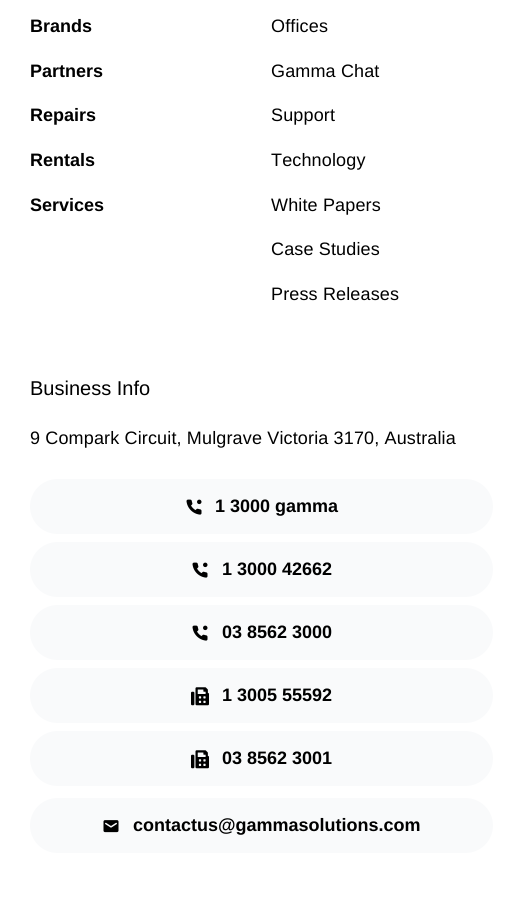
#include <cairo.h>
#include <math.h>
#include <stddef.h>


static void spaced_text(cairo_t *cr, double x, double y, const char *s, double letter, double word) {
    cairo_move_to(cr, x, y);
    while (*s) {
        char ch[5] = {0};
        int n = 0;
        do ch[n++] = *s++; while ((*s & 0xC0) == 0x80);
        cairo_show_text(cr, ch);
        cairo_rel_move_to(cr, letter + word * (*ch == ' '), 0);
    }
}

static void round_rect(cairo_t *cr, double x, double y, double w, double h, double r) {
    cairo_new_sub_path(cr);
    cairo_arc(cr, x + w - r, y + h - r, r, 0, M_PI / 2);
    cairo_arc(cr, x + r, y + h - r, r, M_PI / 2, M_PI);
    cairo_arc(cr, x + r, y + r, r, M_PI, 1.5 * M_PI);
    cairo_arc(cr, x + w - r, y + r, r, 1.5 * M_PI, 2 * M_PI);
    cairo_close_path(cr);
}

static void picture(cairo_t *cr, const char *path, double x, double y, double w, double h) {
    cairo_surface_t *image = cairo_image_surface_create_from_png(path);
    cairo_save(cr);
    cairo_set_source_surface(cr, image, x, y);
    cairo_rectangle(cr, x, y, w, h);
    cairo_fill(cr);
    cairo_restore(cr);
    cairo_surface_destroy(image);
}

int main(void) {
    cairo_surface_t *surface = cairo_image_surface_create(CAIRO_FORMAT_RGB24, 523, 904);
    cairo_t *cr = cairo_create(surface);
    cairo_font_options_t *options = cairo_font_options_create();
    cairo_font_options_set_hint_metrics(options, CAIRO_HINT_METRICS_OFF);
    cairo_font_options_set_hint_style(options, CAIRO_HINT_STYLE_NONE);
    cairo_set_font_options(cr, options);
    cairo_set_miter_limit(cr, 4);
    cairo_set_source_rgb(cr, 1, 1, 1);
    cairo_paint(cr);
    cairo_select_font_face(cr, "Liberation Sans", CAIRO_FONT_SLANT_NORMAL, CAIRO_FONT_WEIGHT_BOLD);
    cairo_set_font_size(cr, 18);
    cairo_set_source_rgb(cr, 0, 0, 0);
    cairo_move_to(cr, 30, 32);
    cairo_show_text(cr, "Brands");
    cairo_move_to(cr, 30, 77);
    cairo_show_text(cr, "Partners");
    cairo_move_to(cr, 30, 121);
    cairo_show_text(cr, "Repairs");
    cairo_move_to(cr, 30, 166);
    cairo_show_text(cr, "Rentals");
    cairo_move_to(cr, 30, 211);
    cairo_show_text(cr, "Services");
    cairo_select_font_face(cr, "Liberation Sans", CAIRO_FONT_SLANT_NORMAL, CAIRO_FONT_WEIGHT_NORMAL);
    spaced_text(cr, 271, 32, "Offices", 0.15, 0);
    spaced_text(cr, 271, 77, "Gamma Chat", 0.15, 0);
    spaced_text(cr, 271, 121, "Support", 0.15, 0);
    spaced_text(cr, 271, 166, "Technology", 0.15, 0);
    spaced_text(cr, 271, 211, "White Papers", 0.15, 0);
    spaced_text(cr, 271, 255, "Case Studies", 0.15, 0);
    spaced_text(cr, 271, 300, "Press Releases", 0.15, 0);
    cairo_set_font_size(cr, 20);
    cairo_move_to(cr, 30, 395);
    cairo_show_text(cr, "Business Info");
    cairo_set_font_size(cr, 18);
    spaced_text(cr, 30, 444, "9 Compark Circuit, Mulgrave Victoria 3170, Australia", 0.15, 0);
    cairo_set_source_rgb(cr, 0.976, 0.98, 0.984);
    round_rect(cr, 30, 479, 463, 55, 27.5);
    cairo_fill(cr);
    picture(cr, "img1.png", 186, 499, 16, 16);
    cairo_select_font_face(cr, "Liberation Sans", CAIRO_FONT_SLANT_NORMAL, CAIRO_FONT_WEIGHT_BOLD);
    cairo_set_source_rgb(cr, 0, 0, 0);
    cairo_move_to(cr, 215, 512);
    cairo_show_text(cr, "1 3000 gamma");
    cairo_set_source_rgb(cr, 0.976, 0.98, 0.984);
    round_rect(cr, 30, 542, 463, 55, 27.5);
    cairo_fill(cr);
    picture(cr, "img1.png", 192, 562, 16, 16);
    cairo_set_source_rgb(cr, 0, 0, 0);
    cairo_move_to(cr, 222, 575);
    cairo_show_text(cr, "1 3000 42662");
    cairo_set_source_rgb(cr, 0.976, 0.98, 0.984);
    round_rect(cr, 30, 605, 463, 55, 27.5);
    cairo_fill(cr);
    picture(cr, "img1.png", 192, 625, 16, 16);
    cairo_set_source_rgb(cr, 0, 0, 0);
    cairo_move_to(cr, 222, 638);
    cairo_show_text(cr, "03 8562 3000");
    cairo_set_source_rgb(cr, 0.976, 0.98, 0.984);
    round_rect(cr, 30, 668, 463, 55, 27.5);
    cairo_fill(cr);
    picture(cr, "img2.png", 191, 687, 18, 19);
    cairo_set_source_rgb(cr, 0, 0, 0);
    cairo_move_to(cr, 222, 701);
    cairo_show_text(cr, "1 3005 55592");
    cairo_set_source_rgb(cr, 0.976, 0.98, 0.984);
    round_rect(cr, 30, 731, 463, 55, 27.5);
    cairo_fill(cr);
    picture(cr, "img2.png", 191, 750, 18, 19);
    cairo_set_source_rgb(cr, 0, 0, 0);
    cairo_move_to(cr, 222, 764);
    cairo_show_text(cr, "03 8562 3001");
    cairo_set_source_rgb(cr, 0.976, 0.98, 0.984);
    round_rect(cr, 30, 798, 463, 55, 27.5);
    cairo_fill(cr);
    picture(cr, "img3.png", 103, 820, 16, 13);
    cairo_set_source_rgb(cr, 0, 0, 0);
    cairo_move_to(cr, 133, 831);
    cairo_show_text(cr, "contactus@gammasolutions.com");
    cairo_surface_write_to_png(surface, "page.png");
    cairo_font_options_destroy(options);
    cairo_destroy(cr);
    cairo_surface_destroy(surface);
    return 0;
}
